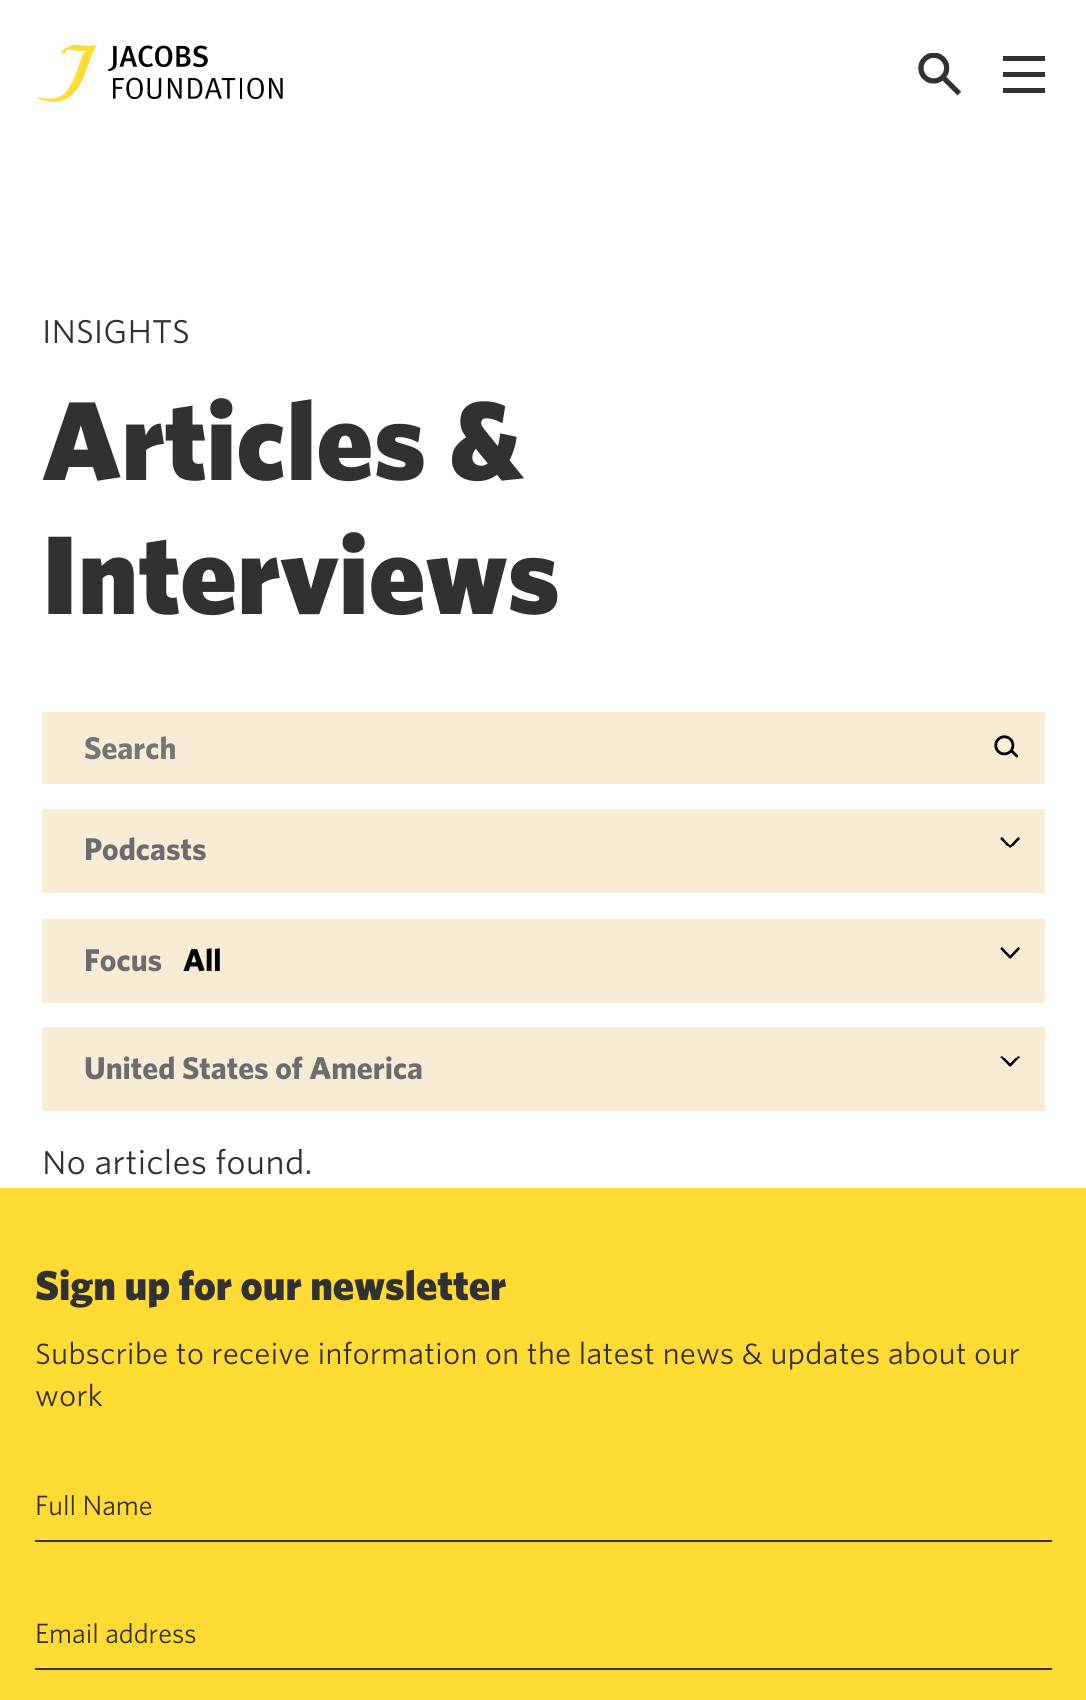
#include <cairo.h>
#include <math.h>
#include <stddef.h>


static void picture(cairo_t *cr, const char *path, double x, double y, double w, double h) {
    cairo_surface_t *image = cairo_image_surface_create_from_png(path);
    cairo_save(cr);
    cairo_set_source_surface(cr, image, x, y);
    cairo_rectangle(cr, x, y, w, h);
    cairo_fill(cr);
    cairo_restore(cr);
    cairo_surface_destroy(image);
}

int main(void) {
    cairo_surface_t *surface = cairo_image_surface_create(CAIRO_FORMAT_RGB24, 1086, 1700);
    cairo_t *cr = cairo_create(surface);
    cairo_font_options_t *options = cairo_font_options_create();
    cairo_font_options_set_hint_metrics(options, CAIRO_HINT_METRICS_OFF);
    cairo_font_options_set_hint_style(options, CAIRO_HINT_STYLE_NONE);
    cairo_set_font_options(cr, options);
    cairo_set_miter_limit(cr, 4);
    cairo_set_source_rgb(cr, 1, 1, 1);
    cairo_paint(cr);
    picture(cr, "img1.png", 38, 44, 245, 58);
    picture(cr, "img2.png", 918, 53, 44, 43);
    cairo_set_source_rgb(cr, 0.192, 0.192, 0.192);
    cairo_rectangle(cr, 1003, 56, 42, 5);
    cairo_fill(cr);
    cairo_rectangle(cr, 1003, 72, 42, 5);
    cairo_fill(cr);
    cairo_rectangle(cr, 1003, 88, 42, 5);
    cairo_fill(cr);
    cairo_select_font_face(cr, "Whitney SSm", CAIRO_FONT_SLANT_NORMAL, CAIRO_FONT_WEIGHT_NORMAL);
    cairo_set_font_size(cr, 31.5);
    cairo_move_to(cr, 42, 343);
    cairo_show_text(cr, "INSIGHTS");
    cairo_select_font_face(cr, "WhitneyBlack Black", CAIRO_FONT_SLANT_NORMAL, CAIRO_FONT_WEIGHT_NORMAL);
    cairo_set_font_size(cr, 112);
    cairo_move_to(cr, 42, 480);
    cairo_show_text(cr, "Articles &");
    cairo_move_to(cr, 42, 614);
    cairo_show_text(cr, "Interviews");
    cairo_set_source_rgb(cr, 0.973, 0.925, 0.831);
    cairo_rectangle(cr, 42, 712, 1003, 72);
    cairo_fill(cr);
    cairo_select_font_face(cr, "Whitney", CAIRO_FONT_SLANT_NORMAL, CAIRO_FONT_WEIGHT_BOLD);
    cairo_set_font_size(cr, 31.5);
    cairo_set_source_rgb(cr, 0.459, 0.459, 0.459);
    cairo_move_to(cr, 84, 759);
    cairo_show_text(cr, "Search");
    picture(cr, "img3.png", 994, 735, 25, 23);
    cairo_set_source_rgb(cr, 0.973, 0.925, 0.831);
    cairo_rectangle(cr, 42, 809, 1003, 84);
    cairo_fill(cr);
    cairo_set_source_rgb(cr, 0.424, 0.424, 0.439);
    cairo_move_to(cr, 84, 860);
    cairo_show_text(cr, "Podcasts");
    picture(cr, "img4.png", 1000, 837, 20, 11);
    cairo_set_source_rgb(cr, 0.973, 0.925, 0.831);
    cairo_rectangle(cr, 42, 919, 1003, 84);
    cairo_fill(cr);
    cairo_set_source_rgb(cr, 0.424, 0.424, 0.439);
    cairo_move_to(cr, 84, 971);
    cairo_show_text(cr, "Focus");
    cairo_set_source_rgb(cr, 0, 0, 0);
    cairo_move_to(cr, 183, 971);
    cairo_show_text(cr, "All");
    picture(cr, "img5.png", 1000, 947, 20, 12);
    cairo_set_source_rgb(cr, 0.973, 0.925, 0.831);
    cairo_rectangle(cr, 42, 1027, 1003, 84);
    cairo_fill(cr);
    cairo_set_source_rgb(cr, 0.424, 0.424, 0.439);
    cairo_move_to(cr, 84, 1079);
    cairo_show_text(cr, "United States of America");
    picture(cr, "img6.png", 1000, 1056, 20, 11);
    cairo_select_font_face(cr, "Whitney SSm", CAIRO_FONT_SLANT_NORMAL, CAIRO_FONT_WEIGHT_NORMAL);
    cairo_set_source_rgb(cr, 0.192, 0.192, 0.192);
    cairo_move_to(cr, 42, 1174);
    cairo_show_text(cr, "No articles found.");
    cairo_set_source_rgb(cr, 1, 0.859, 0.2);
    cairo_rectangle(cr, 0, 1188, 1086, 512);
    cairo_fill(cr);
    cairo_select_font_face(cr, "WhitneyBlack Black", CAIRO_FONT_SLANT_NORMAL, CAIRO_FONT_WEIGHT_NORMAL);
    cairo_set_font_size(cr, 42);
    cairo_set_source_rgb(cr, 0.192, 0.192, 0.192);
    cairo_move_to(cr, 35, 1300);
    cairo_show_text(cr, "Sign up for our newsletter");
    cairo_select_font_face(cr, "Whitney SSm", CAIRO_FONT_SLANT_NORMAL, CAIRO_FONT_WEIGHT_NORMAL);
    cairo_set_font_size(cr, 28);
    cairo_move_to(cr, 35, 1364);
    cairo_show_text(cr, "Subscribe to receive information on the latest news & updates about our");
    cairo_move_to(cr, 35, 1406);
    cairo_show_text(cr, "work");
    cairo_rectangle(cr, 35, 1540, 1017, 2);
    cairo_fill(cr);
    cairo_select_font_face(cr, "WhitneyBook", CAIRO_FONT_SLANT_NORMAL, CAIRO_FONT_WEIGHT_NORMAL);
    cairo_move_to(cr, 35, 1515);
    cairo_show_text(cr, "Full Name");
    cairo_rectangle(cr, 35, 1668, 1017, 2);
    cairo_fill(cr);
    cairo_move_to(cr, 35, 1643);
    cairo_show_text(cr, "Email address");
    cairo_surface_write_to_png(surface, "page.png");
    cairo_font_options_destroy(options);
    cairo_destroy(cr);
    cairo_surface_destroy(surface);
    return 0;
}
